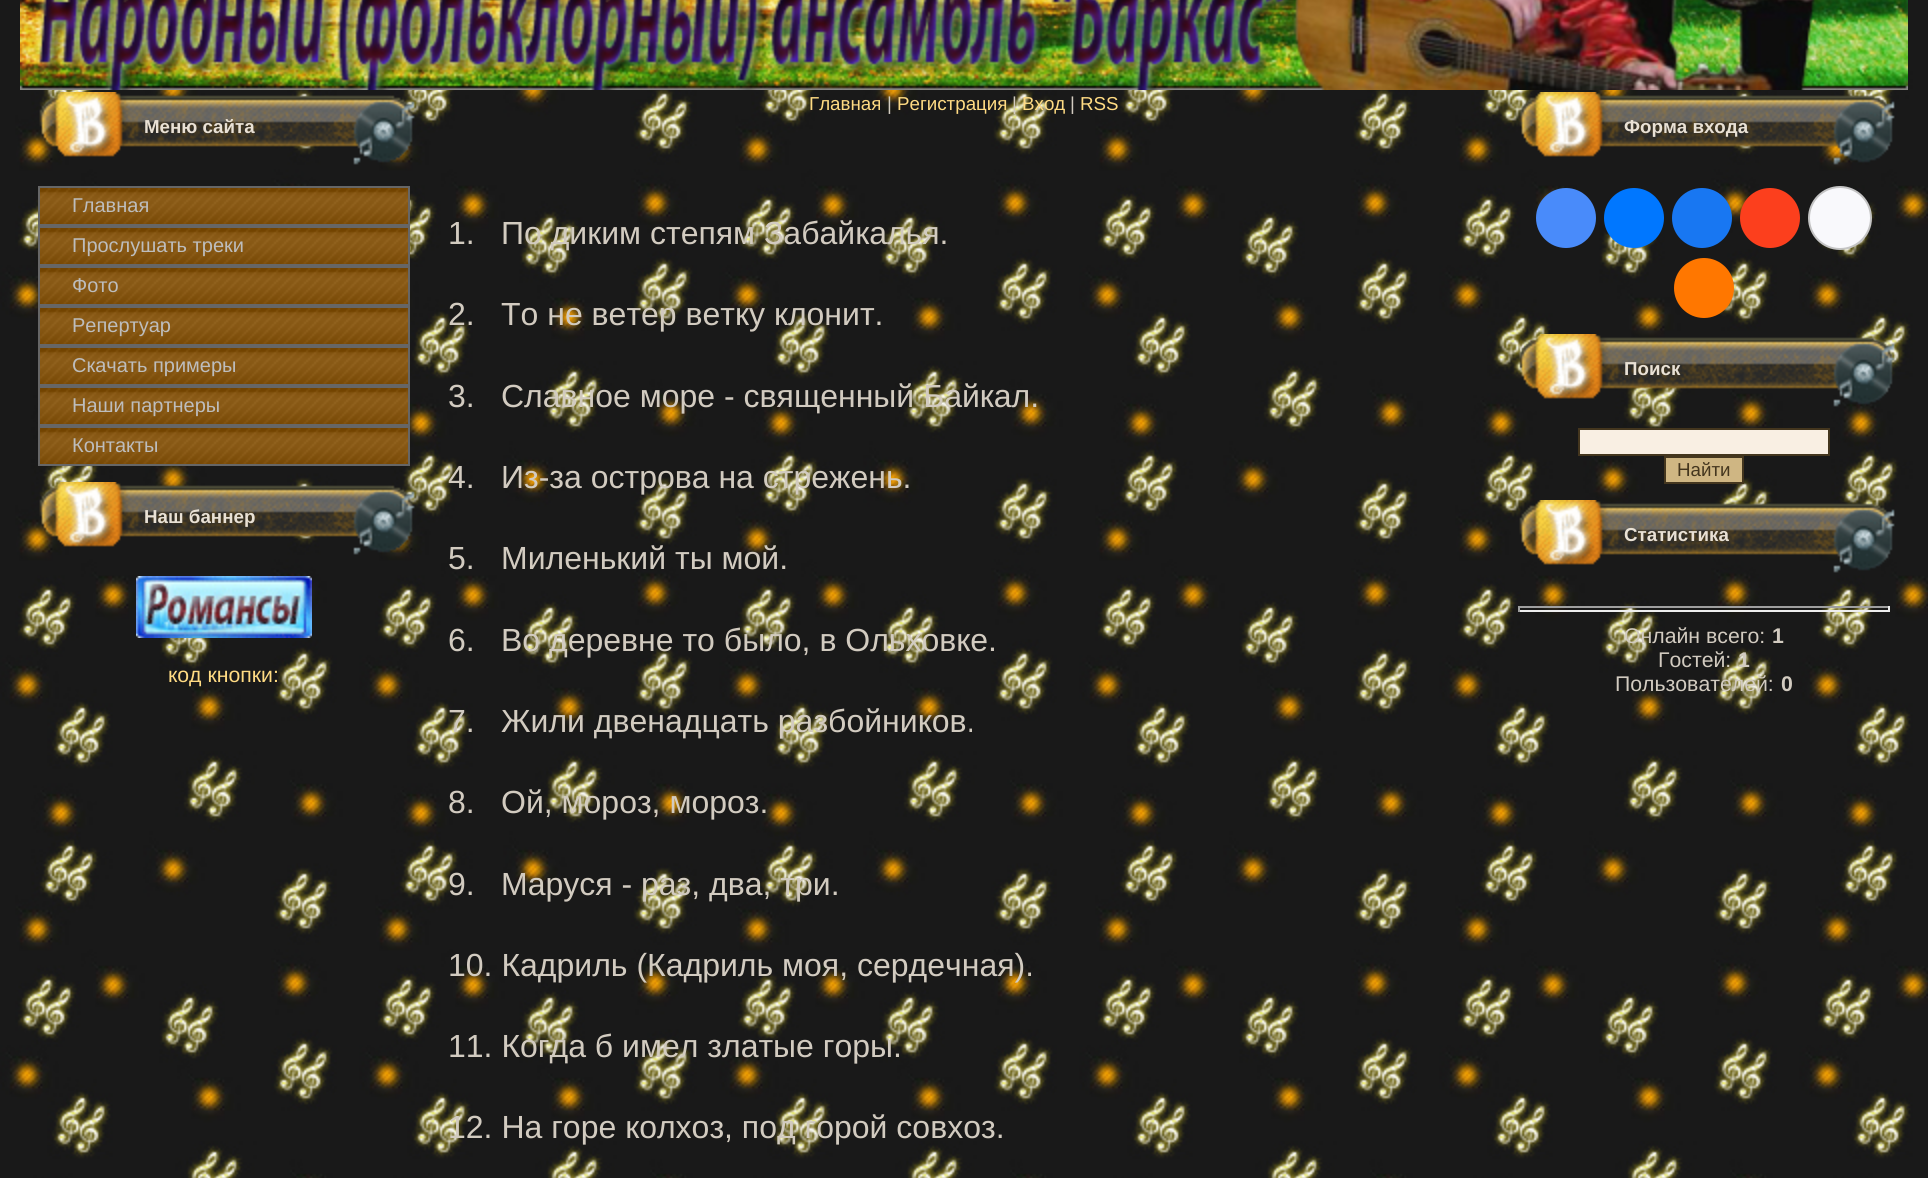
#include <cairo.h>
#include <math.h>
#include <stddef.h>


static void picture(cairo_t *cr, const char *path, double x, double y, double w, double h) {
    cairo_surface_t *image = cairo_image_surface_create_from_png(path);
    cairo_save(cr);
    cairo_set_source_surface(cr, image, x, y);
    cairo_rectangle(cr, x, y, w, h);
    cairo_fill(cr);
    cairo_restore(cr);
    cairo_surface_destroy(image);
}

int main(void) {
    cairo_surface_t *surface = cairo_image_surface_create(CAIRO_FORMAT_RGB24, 1928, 1178);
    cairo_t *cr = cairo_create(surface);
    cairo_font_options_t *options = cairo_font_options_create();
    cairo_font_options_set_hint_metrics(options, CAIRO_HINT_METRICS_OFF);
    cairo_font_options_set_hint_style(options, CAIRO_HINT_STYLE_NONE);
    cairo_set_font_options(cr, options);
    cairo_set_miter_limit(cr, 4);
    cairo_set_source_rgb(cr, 1, 1, 1);
    cairo_paint(cr);
    picture(cr, "img1.png", 0, 0, 1928, 1178);
    picture(cr, "img2.png", 20, 0, 1888, 90);
    picture(cr, "img3.png", 39, 92, 376, 73);
    cairo_select_font_face(cr, "Liberation Sans", CAIRO_FONT_SLANT_NORMAL, CAIRO_FONT_WEIGHT_BOLD);
    cairo_set_font_size(cr, 18.75);
    cairo_set_source_rgb(cr, 0.914, 0.882, 0.835);
    cairo_move_to(cr, 144, 133);
    cairo_show_text(cr, "Меню сайта");
    picture(cr, "img4.png", 40, 188, 368, 36);
    cairo_rectangle(cr, 39, 187, 370, 38);
    cairo_set_source_rgb(cr, 0.4, 0.4, 0.4);
    cairo_stroke(cr);
    cairo_select_font_face(cr, "Liberation Sans", CAIRO_FONT_SLANT_NORMAL, CAIRO_FONT_WEIGHT_NORMAL);
    cairo_set_font_size(cr, 20);
    cairo_set_source_rgb(cr, 0.741, 0.741, 0.741);
    cairo_move_to(cr, 72, 212);
    cairo_show_text(cr, "Главная");
    picture(cr, "img4.png", 40, 228, 368, 36);
    cairo_rectangle(cr, 39, 227, 370, 38);
    cairo_set_source_rgb(cr, 0.4, 0.4, 0.4);
    cairo_stroke(cr);
    cairo_set_source_rgb(cr, 0.741, 0.741, 0.741);
    cairo_move_to(cr, 72, 252);
    cairo_show_text(cr, "Прослушать треки");
    picture(cr, "img4.png", 40, 268, 368, 36);
    cairo_rectangle(cr, 39, 267, 370, 38);
    cairo_set_source_rgb(cr, 0.4, 0.4, 0.4);
    cairo_stroke(cr);
    cairo_set_source_rgb(cr, 0.741, 0.741, 0.741);
    cairo_move_to(cr, 72, 292);
    cairo_show_text(cr, "Фото");
    picture(cr, "img4.png", 40, 308, 368, 36);
    cairo_rectangle(cr, 39, 307, 370, 38);
    cairo_set_source_rgb(cr, 0.4, 0.4, 0.4);
    cairo_stroke(cr);
    cairo_set_source_rgb(cr, 0.741, 0.741, 0.741);
    cairo_move_to(cr, 72, 332);
    cairo_show_text(cr, "Репертуар");
    picture(cr, "img4.png", 40, 348, 368, 36);
    cairo_rectangle(cr, 39, 347, 370, 38);
    cairo_set_source_rgb(cr, 0.4, 0.4, 0.4);
    cairo_stroke(cr);
    cairo_set_source_rgb(cr, 0.741, 0.741, 0.741);
    cairo_move_to(cr, 72, 372);
    cairo_show_text(cr, "Скачать примеры");
    picture(cr, "img4.png", 40, 388, 368, 36);
    cairo_rectangle(cr, 39, 387, 370, 38);
    cairo_set_source_rgb(cr, 0.4, 0.4, 0.4);
    cairo_stroke(cr);
    cairo_set_source_rgb(cr, 0.741, 0.741, 0.741);
    cairo_move_to(cr, 72, 412);
    cairo_show_text(cr, "Наши партнеры");
    picture(cr, "img4.png", 40, 428, 368, 36);
    cairo_rectangle(cr, 39, 427, 370, 38);
    cairo_set_source_rgb(cr, 0.4, 0.4, 0.4);
    cairo_stroke(cr);
    cairo_set_source_rgb(cr, 0.741, 0.741, 0.741);
    cairo_move_to(cr, 72, 452);
    cairo_show_text(cr, "Контакты");
    picture(cr, "img3.png", 39, 482, 376, 73);
    cairo_select_font_face(cr, "Liberation Sans", CAIRO_FONT_SLANT_NORMAL, CAIRO_FONT_WEIGHT_BOLD);
    cairo_set_font_size(cr, 18.75);
    cairo_set_source_rgb(cr, 0.914, 0.882, 0.835);
    cairo_move_to(cr, 144, 523);
    cairo_show_text(cr, "Наш баннер");
    picture(cr, "img5.png", 136, 576, 176, 62);
    cairo_select_font_face(cr, "Liberation Sans", CAIRO_FONT_SLANT_NORMAL, CAIRO_FONT_WEIGHT_NORMAL);
    cairo_set_font_size(cr, 21.25);
    cairo_set_source_rgb(cr, 1, 0.859, 0.514);
    cairo_move_to(cr, 168, 682);
    cairo_show_text(cr, "код кнопки:");
    cairo_set_font_size(cr, 18.75);
    cairo_move_to(cr, 809, 110);
    cairo_show_text(cr, "Главная");
    cairo_set_source_rgb(cr, 0.824, 0.796, 0.753);
    cairo_move_to(cr, 887, 110);
    cairo_show_text(cr, "|");
    cairo_set_source_rgb(cr, 1, 0.859, 0.514);
    cairo_move_to(cr, 897, 110);
    cairo_show_text(cr, "Регистрация");
    cairo_set_source_rgb(cr, 0.824, 0.796, 0.753);
    cairo_move_to(cr, 1012, 110);
    cairo_show_text(cr, "|");
    cairo_set_source_rgb(cr, 1, 0.859, 0.514);
    cairo_move_to(cr, 1022, 110);
    cairo_show_text(cr, "Вход");
    cairo_set_source_rgb(cr, 0.824, 0.796, 0.753);
    cairo_move_to(cr, 1070, 110);
    cairo_show_text(cr, "|");
    cairo_set_source_rgb(cr, 1, 0.859, 0.514);
    cairo_move_to(cr, 1080, 110);
    cairo_show_text(cr, "RSS");
    cairo_set_font_size(cr, 32);
    cairo_set_source_rgb(cr, 0.824, 0.796, 0.753);
    cairo_move_to(cr, 448, 244);
    cairo_show_text(cr, "1.");
    cairo_move_to(cr, 501, 244);
    cairo_show_text(cr, "По диким степям Забайкалья.");
    cairo_move_to(cr, 448, 325);
    cairo_show_text(cr, "2.");
    cairo_move_to(cr, 501, 325);
    cairo_show_text(cr, "То не ветер ветку клонит.");
    cairo_move_to(cr, 448, 407);
    cairo_show_text(cr, "3.");
    cairo_move_to(cr, 501, 407);
    cairo_show_text(cr, "Славное море - священный Байкал.");
    cairo_move_to(cr, 448, 488);
    cairo_show_text(cr, "4.");
    cairo_move_to(cr, 501, 488);
    cairo_show_text(cr, "Из-за острова на стрежень.");
    cairo_move_to(cr, 448, 569);
    cairo_show_text(cr, "5.");
    cairo_move_to(cr, 501, 569);
    cairo_show_text(cr, "Миленький ты мой.");
    cairo_move_to(cr, 448, 651);
    cairo_show_text(cr, "6.");
    cairo_move_to(cr, 501, 651);
    cairo_show_text(cr, "Во деревне то было, в Ольховке.");
    cairo_move_to(cr, 448, 732);
    cairo_show_text(cr, "7.");
    cairo_move_to(cr, 501, 732);
    cairo_show_text(cr, "Жили двенадцать разбойников.");
    cairo_move_to(cr, 448, 813);
    cairo_show_text(cr, "8.");
    cairo_move_to(cr, 501, 813);
    cairo_show_text(cr, "Ой, мороз, мороз.");
    cairo_move_to(cr, 448, 895);
    cairo_show_text(cr, "9.");
    cairo_move_to(cr, 501, 895);
    cairo_show_text(cr, "Маруся - раз, два, три.");
    cairo_move_to(cr, 448, 976);
    cairo_show_text(cr, "10. Кадриль (Кадриль моя, сердечная).");
    cairo_move_to(cr, 448, 1057);
    cairo_show_text(cr, "11. Когда б имел златые горы.");
    cairo_move_to(cr, 448, 1138);
    cairo_show_text(cr, "12. На горе колхоз, под горой совхоз.");
    picture(cr, "img6.png", 1519, 92, 376, 73);
    cairo_select_font_face(cr, "Liberation Sans", CAIRO_FONT_SLANT_NORMAL, CAIRO_FONT_WEIGHT_BOLD);
    cairo_set_font_size(cr, 18.75);
    cairo_set_source_rgb(cr, 0.914, 0.882, 0.835);
    cairo_move_to(cr, 1624, 133);
    cairo_show_text(cr, "Форма входа");
    cairo_set_source_rgb(cr, 0.286, 0.545, 0.98);
    cairo_new_path(cr);
    cairo_arc(cr, 1566, 218, 30, 0, 2 * M_PI);
    cairo_fill(cr);
    cairo_set_source_rgb(cr, 0, 0.467, 1);
    cairo_arc(cr, 1634, 218, 30, 0, 2 * M_PI);
    cairo_fill(cr);
    cairo_set_source_rgb(cr, 0.094, 0.467, 0.949);
    cairo_arc(cr, 1702, 218, 30, 0, 2 * M_PI);
    cairo_fill(cr);
    cairo_set_source_rgb(cr, 0.988, 0.247, 0.114);
    cairo_arc(cr, 1770, 218, 30, 0, 2 * M_PI);
    cairo_fill(cr);
    cairo_set_source_rgb(cr, 0.973, 0.973, 0.988);
    cairo_arc(cr, 1840, 218, 31, 0, 2 * M_PI);
    cairo_fill_preserve(cr);
    cairo_set_source_rgb(cr, 0.769, 0.769, 0.769);
    cairo_stroke(cr);
    cairo_set_source_rgb(cr, 1, 0.467, 0);
    cairo_arc(cr, 1704, 288, 30, 0, 2 * M_PI);
    cairo_fill(cr);
    picture(cr, "img7.png", 1519, 334, 376, 73);
    cairo_set_source_rgb(cr, 0.914, 0.882, 0.835);
    cairo_move_to(cr, 1624, 375);
    cairo_show_text(cr, "Поиск");
    cairo_set_source_rgb(cr, 0.973, 0.937, 0.89);
    cairo_rectangle(cr, 1579, 429, 250, 26);
    cairo_fill_preserve(cr);
    cairo_set_source_rgb(cr, 0.267, 0.212, 0.118);
    cairo_stroke(cr);
    cairo_set_source_rgb(cr, 0.812, 0.714, 0.514);
    cairo_rectangle(cr, 1665, 457, 78, 26);
    cairo_fill_preserve(cr);
    cairo_set_source_rgb(cr, 0.267, 0.212, 0.118);
    cairo_stroke(cr);
    cairo_select_font_face(cr, "Liberation Sans", CAIRO_FONT_SLANT_NORMAL, CAIRO_FONT_WEIGHT_NORMAL);
    cairo_move_to(cr, 1677, 476);
    cairo_show_text(cr, "Найти");
    picture(cr, "img8.png", 1519, 500, 376, 73);
    cairo_select_font_face(cr, "Liberation Sans", CAIRO_FONT_SLANT_NORMAL, CAIRO_FONT_WEIGHT_BOLD);
    cairo_set_source_rgb(cr, 0.914, 0.882, 0.835);
    cairo_move_to(cr, 1624, 541);
    cairo_show_text(cr, "Статистика");
    cairo_set_source_rgb(cr, 0.624, 0.624, 0.624);
    cairo_rectangle(cr, 1518, 606, 372, 2);
    cairo_fill(cr);
    cairo_set_source_rgb(cr, 0.933, 0.933, 0.933);
    cairo_rectangle(cr, 1888, 606, 2, 6);
    cairo_fill(cr);
    cairo_rectangle(cr, 1518, 610, 372, 2);
    cairo_fill(cr);
    cairo_set_source_rgb(cr, 0.624, 0.624, 0.624);
    cairo_rectangle(cr, 1518, 606, 2, 6);
    cairo_fill(cr);
    cairo_select_font_face(cr, "Liberation Sans", CAIRO_FONT_SLANT_NORMAL, CAIRO_FONT_WEIGHT_NORMAL);
    cairo_set_font_size(cr, 21.25);
    cairo_set_source_rgb(cr, 0.824, 0.796, 0.753);
    cairo_move_to(cr, 1624, 643);
    cairo_show_text(cr, "Онлайн всего:");
    cairo_select_font_face(cr, "Liberation Sans", CAIRO_FONT_SLANT_NORMAL, CAIRO_FONT_WEIGHT_BOLD);
    cairo_move_to(cr, 1772, 643);
    cairo_show_text(cr, "1");
    cairo_select_font_face(cr, "Liberation Sans", CAIRO_FONT_SLANT_NORMAL, CAIRO_FONT_WEIGHT_NORMAL);
    cairo_move_to(cr, 1658, 667);
    cairo_show_text(cr, "Гостей:");
    cairo_select_font_face(cr, "Liberation Sans", CAIRO_FONT_SLANT_NORMAL, CAIRO_FONT_WEIGHT_BOLD);
    cairo_move_to(cr, 1738, 667);
    cairo_show_text(cr, "1");
    cairo_select_font_face(cr, "Liberation Sans", CAIRO_FONT_SLANT_NORMAL, CAIRO_FONT_WEIGHT_NORMAL);
    cairo_move_to(cr, 1615, 691);
    cairo_show_text(cr, "Пользователей:");
    cairo_select_font_face(cr, "Liberation Sans", CAIRO_FONT_SLANT_NORMAL, CAIRO_FONT_WEIGHT_BOLD);
    cairo_move_to(cr, 1781, 691);
    cairo_show_text(cr, "0");
    cairo_surface_write_to_png(surface, "page.png");
    cairo_font_options_destroy(options);
    cairo_destroy(cr);
    cairo_surface_destroy(surface);
    return 0;
}
